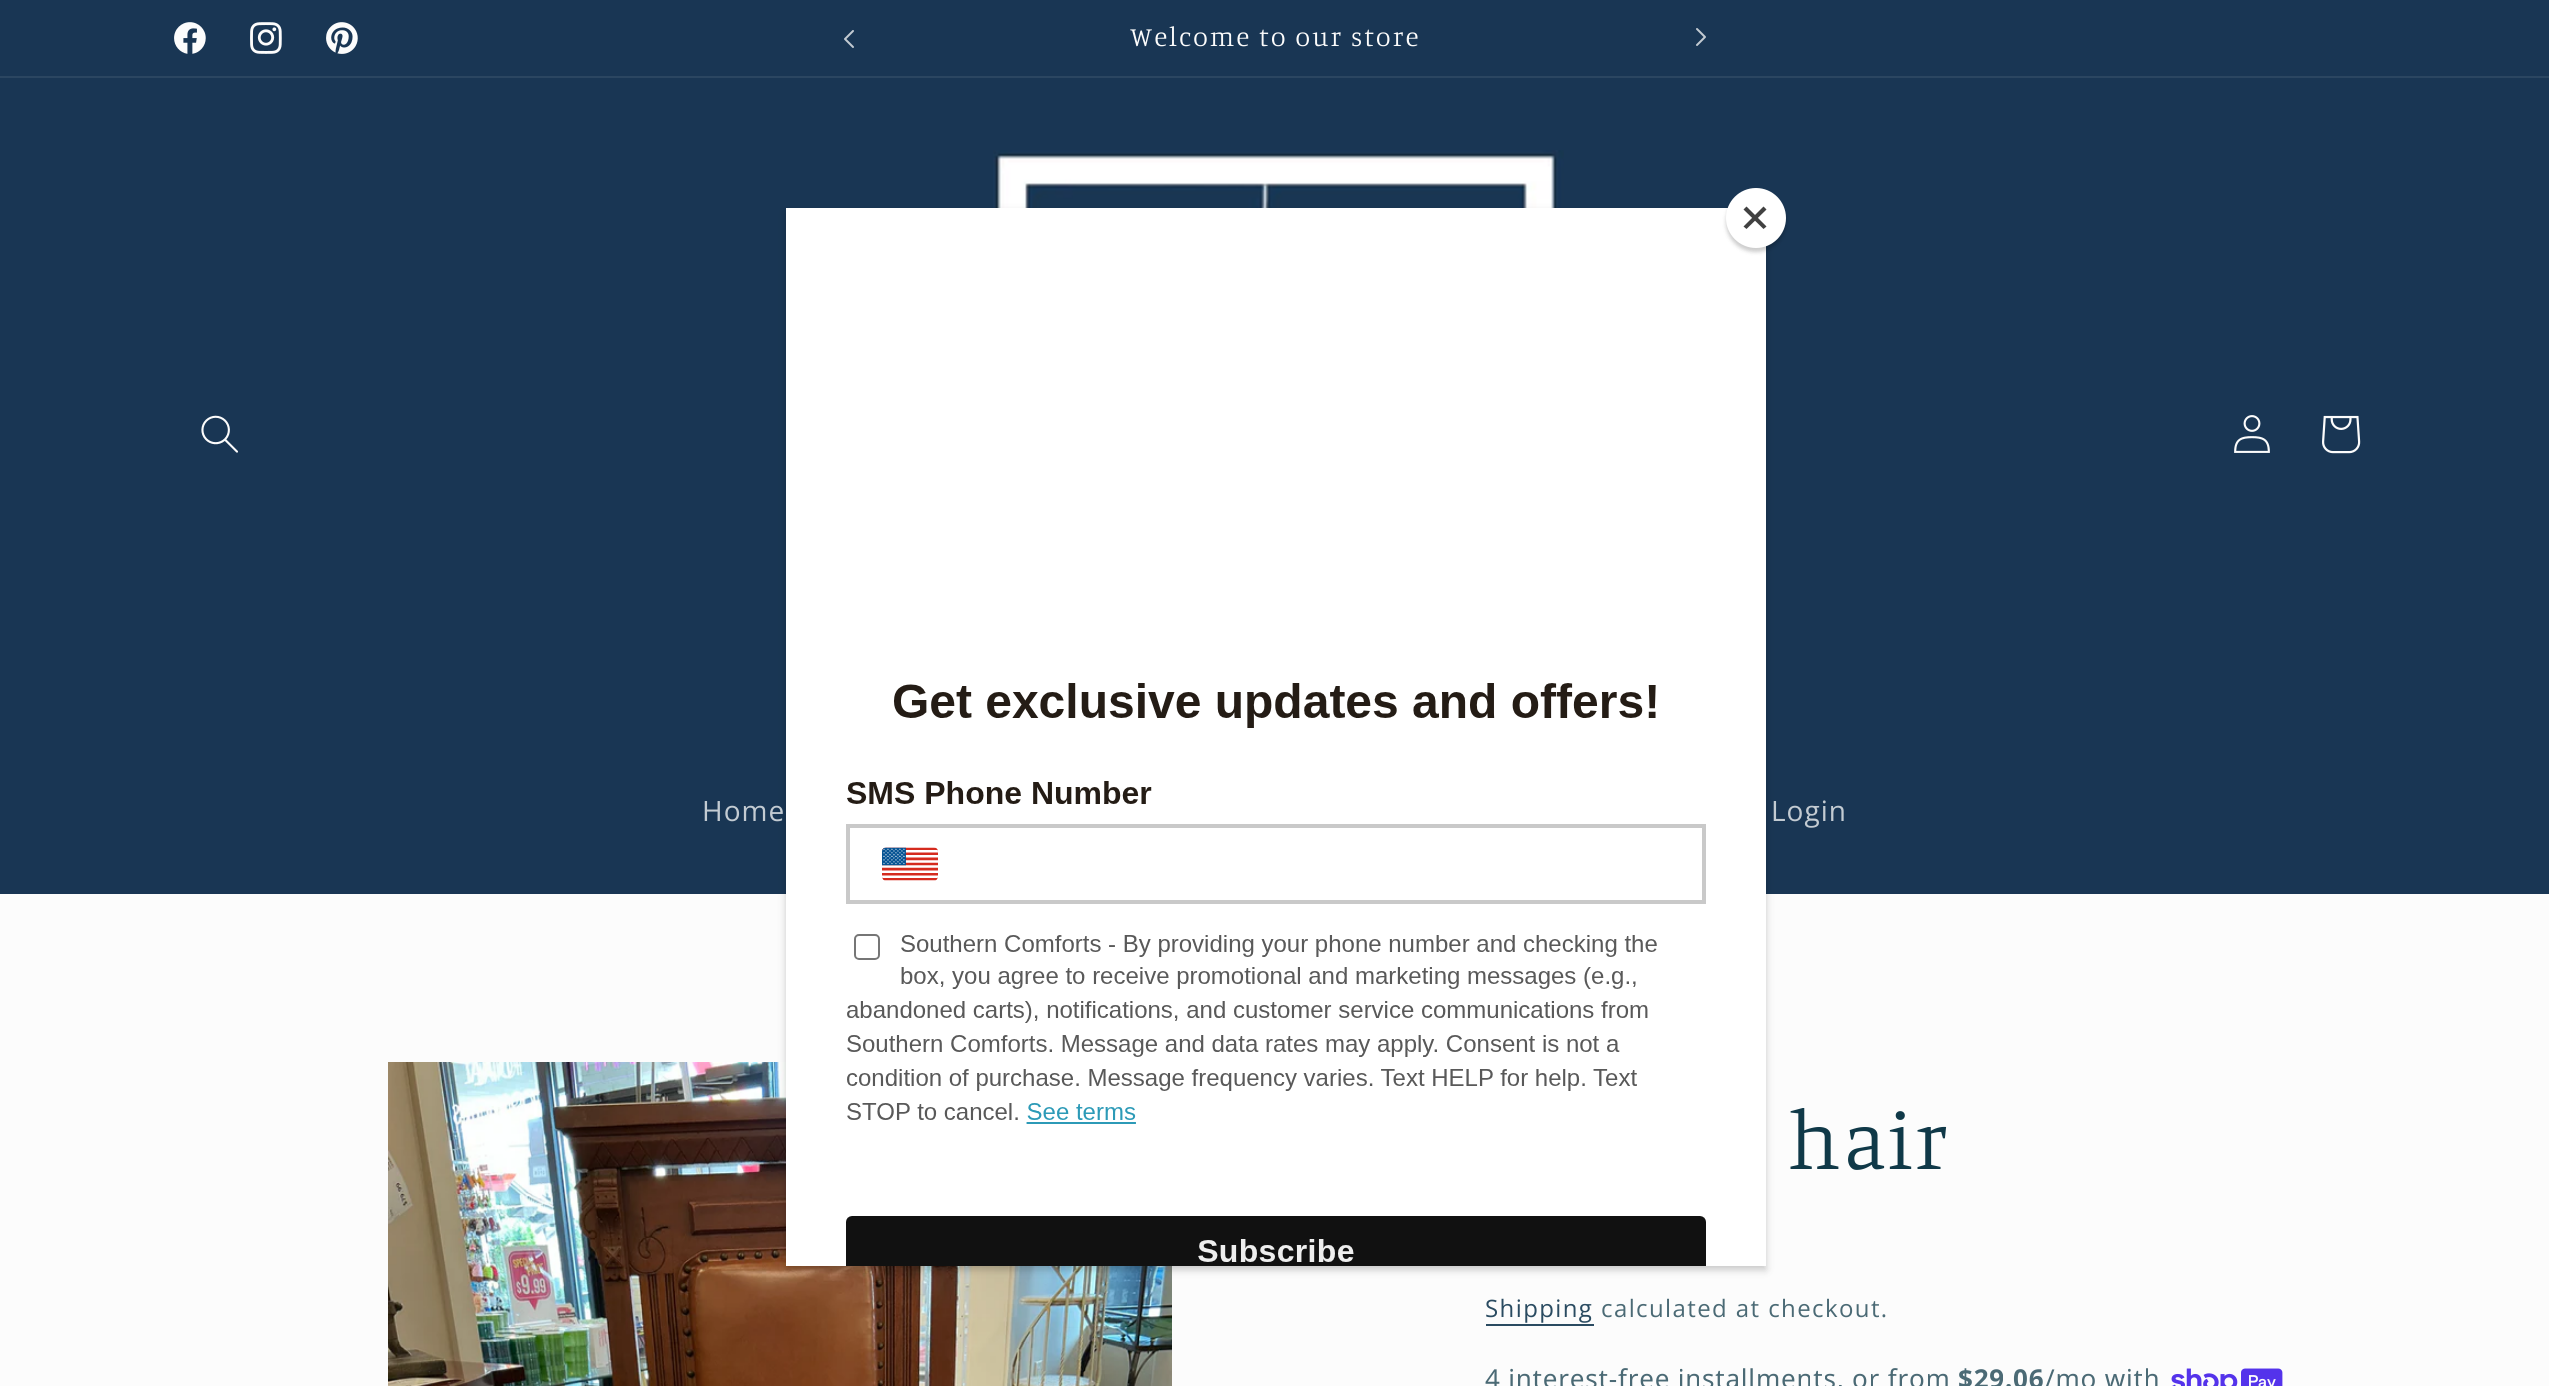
#include <cairo.h>
#include <math.h>
#include <stddef.h>


static void spaced_text(cairo_t *cr, double x, double y, const char *s, double letter, double word) {
    cairo_move_to(cr, x, y);
    while (*s) {
        char ch[5] = {0};
        int n = 0;
        do ch[n++] = *s++; while ((*s & 0xC0) == 0x80);
        cairo_show_text(cr, ch);
        cairo_rel_move_to(cr, letter + word * (*ch == ' '), 0);
    }
}

static void round_rect(cairo_t *cr, double x, double y, double w, double h, double r) {
    cairo_new_sub_path(cr);
    cairo_arc(cr, x + w - r, y + h - r, r, 0, M_PI / 2);
    cairo_arc(cr, x + r, y + h - r, r, M_PI / 2, M_PI);
    cairo_arc(cr, x + r, y + r, r, M_PI, 1.5 * M_PI);
    cairo_arc(cr, x + w - r, y + r, r, 1.5 * M_PI, 2 * M_PI);
    cairo_close_path(cr);
}

static void shadow(cairo_t *cr, double x, double y, double w, double h, double r, double blur, double alpha) {
    cairo_push_group_with_content(cr, CAIRO_CONTENT_ALPHA);
    cairo_set_operator(cr, CAIRO_OPERATOR_SOURCE);
    for (int i = 15; i >= -15 && fmin(w, h) + blur * i / 3 > 0; i -= 2) {
        double e = blur * i / 6;
        cairo_set_source_rgba(cr, 0, 0, 0, alpha * erfc((i - 1) / 8.5) / 2);
        round_rect(cr, x - e, y - e, w + 2 * e, h + 2 * e, fmax(0, fmin(r + e + blur * .6, fmin(w, h) / 2 + e)));
        cairo_fill(cr);
    }
    cairo_pattern_t *soft = cairo_pop_group(cr);
    cairo_mask(cr, soft);
    cairo_pattern_destroy(soft);
}

static void picture(cairo_t *cr, const char *path, double x, double y, double w, double h) {
    cairo_surface_t *image = cairo_image_surface_create_from_png(path);
    cairo_save(cr);
    cairo_set_source_surface(cr, image, x, y);
    cairo_rectangle(cr, x, y, w, h);
    cairo_fill(cr);
    cairo_restore(cr);
    cairo_surface_destroy(image);
}

int main(void) {
    cairo_surface_t *surface = cairo_image_surface_create(CAIRO_FORMAT_RGB24, 2549, 1386);
    cairo_t *cr = cairo_create(surface);
    cairo_font_options_t *options = cairo_font_options_create();
    cairo_font_options_set_hint_metrics(options, CAIRO_HINT_METRICS_OFF);
    cairo_font_options_set_hint_style(options, CAIRO_HINT_STYLE_NONE);
    cairo_set_font_options(cr, options);
    cairo_set_miter_limit(cr, 4);
    cairo_set_source_rgb(cr, 0.988, 0.988, 0.988);
    cairo_paint(cr);
    cairo_set_source_rgb(cr, 0.098, 0.212, 0.329);
    cairo_rectangle(cr, 0, 0, 2549, 76);
    cairo_fill(cr);
    cairo_set_source_rgb(cr, 0.169, 0.275, 0.38);
    cairo_rectangle(cr, 0, 76, 2549, 2);
    cairo_fill(cr);
    picture(cr, "img1.png", 174, 22, 32, 32);
    picture(cr, "img2.png", 250, 22, 32, 32);
    picture(cr, "img3.png", 326, 22, 32, 32);
    picture(cr, "img4.png", 844, 30, 10, 18);
    cairo_select_font_face(cr, "Manuale Light", CAIRO_FONT_SLANT_NORMAL, CAIRO_FONT_WEIGHT_NORMAL);
    cairo_set_font_size(cr, 27.25);
    cairo_set_source_rgb(cr, 0.988, 0.988, 0.988);
    spaced_text(cr, 1130, 46, "Welcome to our store", 2, 0);
    picture(cr, "img5.png", 1696, 28, 10, 18);
    cairo_set_source_rgb(cr, 0.098, 0.212, 0.329);
    cairo_rectangle(cr, 0, 78, 2549, 816);
    cairo_fill(cr);
    picture(cr, "img7.png", 993, 150, 571, 58);
    picture(cr, "img11.png", 388, 1062, 784, 324);
    cairo_set_source_rgb(cr, 0, 0, 0);
    shadow(cr, 786, 212, 980, 1058, 0, 4, 0.2);
    picture(cr, "img6.png", 786, 208, 980, 1058);
    shadow(cr, 1726, 192, 60, 60, 30, 2, 0.2);
    cairo_set_source_rgb(cr, 1, 1, 1);
    cairo_arc(cr, 1756, 218, 30, 0, 2 * M_PI);
    cairo_fill(cr);
    cairo_set_source_rgb(cr, 0.255, 0.255, 0.255);
    cairo_new_path(cr);
    cairo_move_to(cr, 1763.5, 206.5);
    cairo_line_to(cr, 1766.5, 209.5);
    cairo_line_to(cr, 1746.5, 229);
    cairo_line_to(cr, 1743.5, 226.5);
    cairo_close_path(cr);
    cairo_fill(cr);
    cairo_new_path(cr);
    cairo_move_to(cr, 1743.5, 209.5);
    cairo_line_to(cr, 1746.5, 206.5);
    cairo_line_to(cr, 1766.5, 226.5);
    cairo_line_to(cr, 1763.5, 229);
    cairo_close_path(cr);
    cairo_fill(cr);
    picture(cr, "img8.png", 201, 415, 37, 38);
    picture(cr, "img9.png", 2234, 415, 36, 38);
    picture(cr, "img10.png", 2322, 415, 39, 39);
    cairo_select_font_face(cr, "Open Sans", CAIRO_FONT_SLANT_NORMAL, CAIRO_FONT_WEIGHT_NORMAL);
    cairo_set_font_size(cr, 28);
    cairo_set_source_rgb(cr, 0.765, 0.796, 0.824);
    spaced_text(cr, 702, 821, "Home", 1, 0);
    spaced_text(cr, 1771, 821, "Login", 1, 0);
    cairo_select_font_face(cr, "Manuale Light", CAIRO_FONT_SLANT_NORMAL, CAIRO_FONT_WEIGHT_NORMAL);
    cairo_set_font_size(cr, 84);
    cairo_set_source_rgb(cr, 0.063, 0.224, 0.282);
    spaced_text(cr, 1789, 1169, "hair", 1.5, 0);
    cairo_select_font_face(cr, "Open Sans", CAIRO_FONT_SLANT_NORMAL, CAIRO_FONT_WEIGHT_NORMAL);
    cairo_set_font_size(cr, 24);
    cairo_set_source_rgb(cr, 0.165, 0.294, 0.38);
    spaced_text(cr, 1485, 1317, "Shipping", 1.4, 0);
    cairo_rectangle(cr, 1486, 1324, 108, 2);
    cairo_fill(cr);
    cairo_set_source_rgb(cr, 0.294, 0.416, 0.459);
    spaced_text(cr, 1601, 1317, "calculated at checkout.", 1.4, 0);
    cairo_select_font_face(cr, "Noto Sans", CAIRO_FONT_SLANT_NORMAL, CAIRO_FONT_WEIGHT_NORMAL);
    cairo_set_font_size(cr, 26);
    spaced_text(cr, 1485, 1388, "4 interest-free installments, or from", 0.8, 0);
    cairo_select_font_face(cr, "Noto Sans", CAIRO_FONT_SLANT_NORMAL, CAIRO_FONT_WEIGHT_BOLD);
    spaced_text(cr, 1958, 1388, "$29.06", 0.8, 0);
    cairo_select_font_face(cr, "Noto Sans", CAIRO_FONT_SLANT_NORMAL, CAIRO_FONT_WEIGHT_NORMAL);
    spaced_text(cr, 2045, 1388, "/mo with", 0.8, 0);
    picture(cr, "img12.png", 2171, 1368, 112, 18);
    cairo_surface_write_to_png(surface, "page.png");
    cairo_font_options_destroy(options);
    cairo_destroy(cr);
    cairo_surface_destroy(surface);
    return 0;
}
